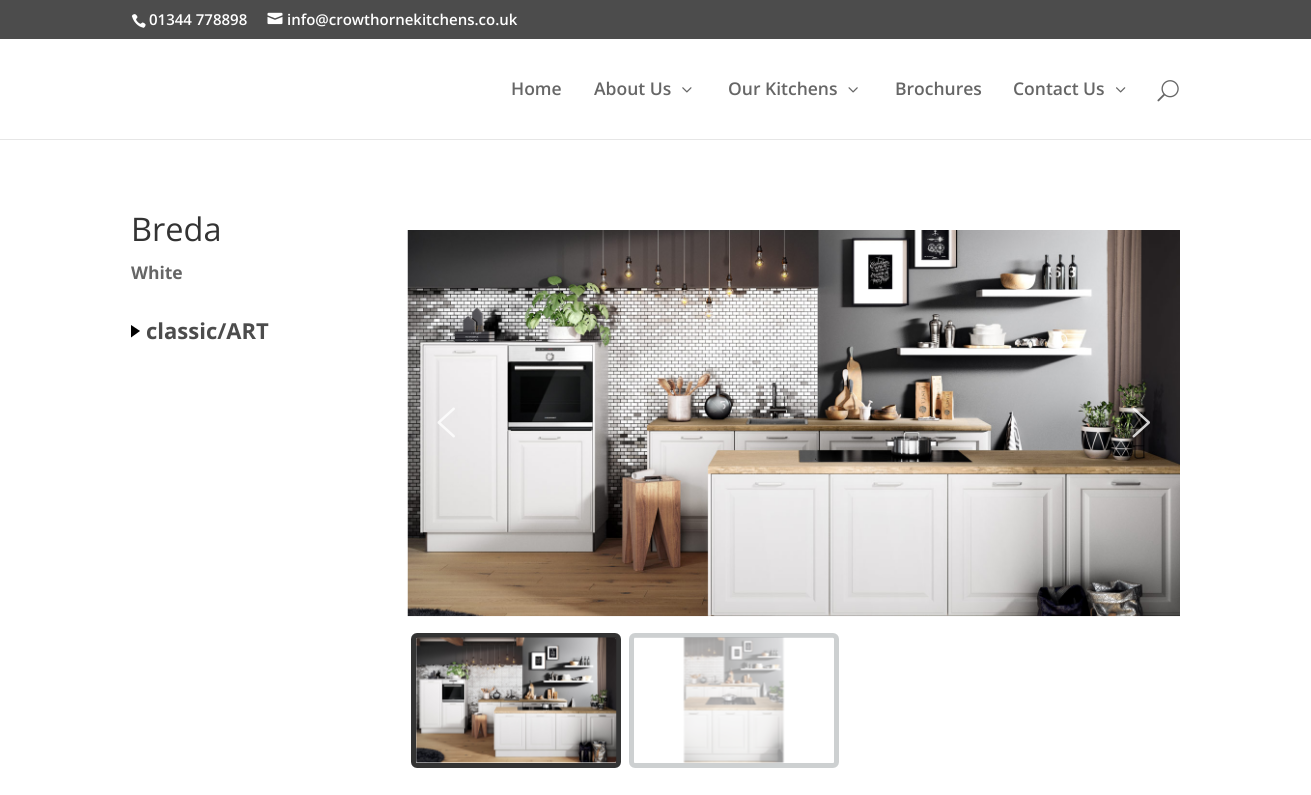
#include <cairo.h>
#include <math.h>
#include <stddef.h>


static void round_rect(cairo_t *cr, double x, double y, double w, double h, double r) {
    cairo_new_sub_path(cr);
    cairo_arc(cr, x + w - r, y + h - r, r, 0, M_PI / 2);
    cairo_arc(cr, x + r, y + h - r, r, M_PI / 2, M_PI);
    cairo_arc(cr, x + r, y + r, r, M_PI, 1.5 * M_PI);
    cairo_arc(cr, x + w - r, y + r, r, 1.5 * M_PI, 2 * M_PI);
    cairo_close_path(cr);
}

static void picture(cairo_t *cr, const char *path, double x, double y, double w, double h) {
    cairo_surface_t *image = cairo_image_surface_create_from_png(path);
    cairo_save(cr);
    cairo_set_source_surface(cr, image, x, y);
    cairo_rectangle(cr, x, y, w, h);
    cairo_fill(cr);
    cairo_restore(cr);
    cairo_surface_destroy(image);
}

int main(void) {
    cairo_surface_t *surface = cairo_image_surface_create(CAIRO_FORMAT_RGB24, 1311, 795);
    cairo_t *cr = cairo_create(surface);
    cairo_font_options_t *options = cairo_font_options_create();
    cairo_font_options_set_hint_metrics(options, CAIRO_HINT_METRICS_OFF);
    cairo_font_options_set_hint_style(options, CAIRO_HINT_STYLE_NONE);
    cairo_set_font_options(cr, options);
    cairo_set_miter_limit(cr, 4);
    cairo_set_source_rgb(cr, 1, 1, 1);
    cairo_paint(cr);
    cairo_set_source_rgb(cr, 0.298, 0.298, 0.298);
    cairo_rectangle(cr, 0, 0, 1311, 39);
    cairo_fill(cr);
    picture(cr, "img1.png", 131, 14, 15, 14);
    cairo_select_font_face(cr, "Open Sans SemiBold", CAIRO_FONT_SLANT_NORMAL, CAIRO_FONT_WEIGHT_NORMAL);
    cairo_set_font_size(cr, 15);
    cairo_set_source_rgb(cr, 1, 1, 1);
    cairo_move_to(cr, 149, 25);
    cairo_show_text(cr, "01344 778898");
    picture(cr, "img2.png", 267, 12, 16, 13);
    cairo_move_to(cr, 287, 25);
    cairo_show_text(cr, "info@crowthornekitchens.co.uk");
    cairo_set_source_rgb(cr, 0.902, 0.902, 0.902);
    cairo_rectangle(cr, 0, 139, 1311, 1);
    cairo_fill(cr);
    cairo_set_font_size(cr, 17.5);
    cairo_set_source_rgb(cr, 0.4, 0.4, 0.4);
    cairo_move_to(cr, 511, 95);
    cairo_show_text(cr, "Home");
    cairo_move_to(cr, 594, 95);
    cairo_show_text(cr, "About Us");
    picture(cr, "img3.png", 682, 87, 10, 6);
    cairo_move_to(cr, 728, 95);
    cairo_show_text(cr, "Our Kitchens");
    picture(cr, "img4.png", 848, 87, 10, 6);
    cairo_move_to(cr, 895, 95);
    cairo_show_text(cr, "Brochures");
    cairo_move_to(cr, 1013, 95);
    cairo_show_text(cr, "Contact Us");
    picture(cr, "img5.png", 1116, 87, 10, 6);
    picture(cr, "img6.png", 1157, 80, 22, 22);
    cairo_select_font_face(cr, "Open Sans", CAIRO_FONT_SLANT_NORMAL, CAIRO_FONT_WEIGHT_NORMAL);
    cairo_set_font_size(cr, 32.5);
    cairo_set_source_rgb(cr, 0.2, 0.2, 0.2);
    cairo_move_to(cr, 131, 241);
    cairo_show_text(cr, "Breda");
    cairo_select_font_face(cr, "Open Sans", CAIRO_FONT_SLANT_NORMAL, CAIRO_FONT_WEIGHT_BOLD);
    cairo_set_font_size(cr, 17.5);
    cairo_set_source_rgb(cr, 0.4, 0.4, 0.4);
    cairo_move_to(cr, 131, 279);
    cairo_show_text(cr, "White");
    cairo_set_source_rgb(cr, 0, 0, 0);
    cairo_new_path(cr);
    cairo_move_to(cr, 131, 337.5);
    cairo_line_to(cr, 131, 325);
    cairo_line_to(cr, 140, 331);
    cairo_close_path(cr);
    cairo_fill(cr);
    cairo_set_font_size(cr, 22);
    cairo_set_source_rgb(cr, 0.298, 0.298, 0.298);
    cairo_move_to(cr, 146, 339);
    cairo_show_text(cr, "classic/ART");
    picture(cr, "img7.png", 407, 230, 773, 387);
    picture(cr, "img8.png", 437, 407, 18, 31);
    picture(cr, "img9.png", 1132, 407, 18, 31);
    round_rect(cr, 413.5, 635.5, 205, 130, 3.5);
    cairo_set_source_rgb(cr, 0.2, 0.2, 0.2);
    cairo_set_line_width(cr, 5);
    cairo_stroke(cr);
    picture(cr, "img10.png", 416, 637, 201, 126);
    round_rect(cr, 631.5, 635.5, 205, 130, 3.5);
    cairo_set_source_rgb(cr, 0.804, 0.816, 0.82);
    cairo_stroke(cr);
    picture(cr, "img11.png", 634, 637, 199, 126);
    cairo_surface_write_to_png(surface, "page.png");
    cairo_font_options_destroy(options);
    cairo_destroy(cr);
    cairo_surface_destroy(surface);
    return 0;
}
